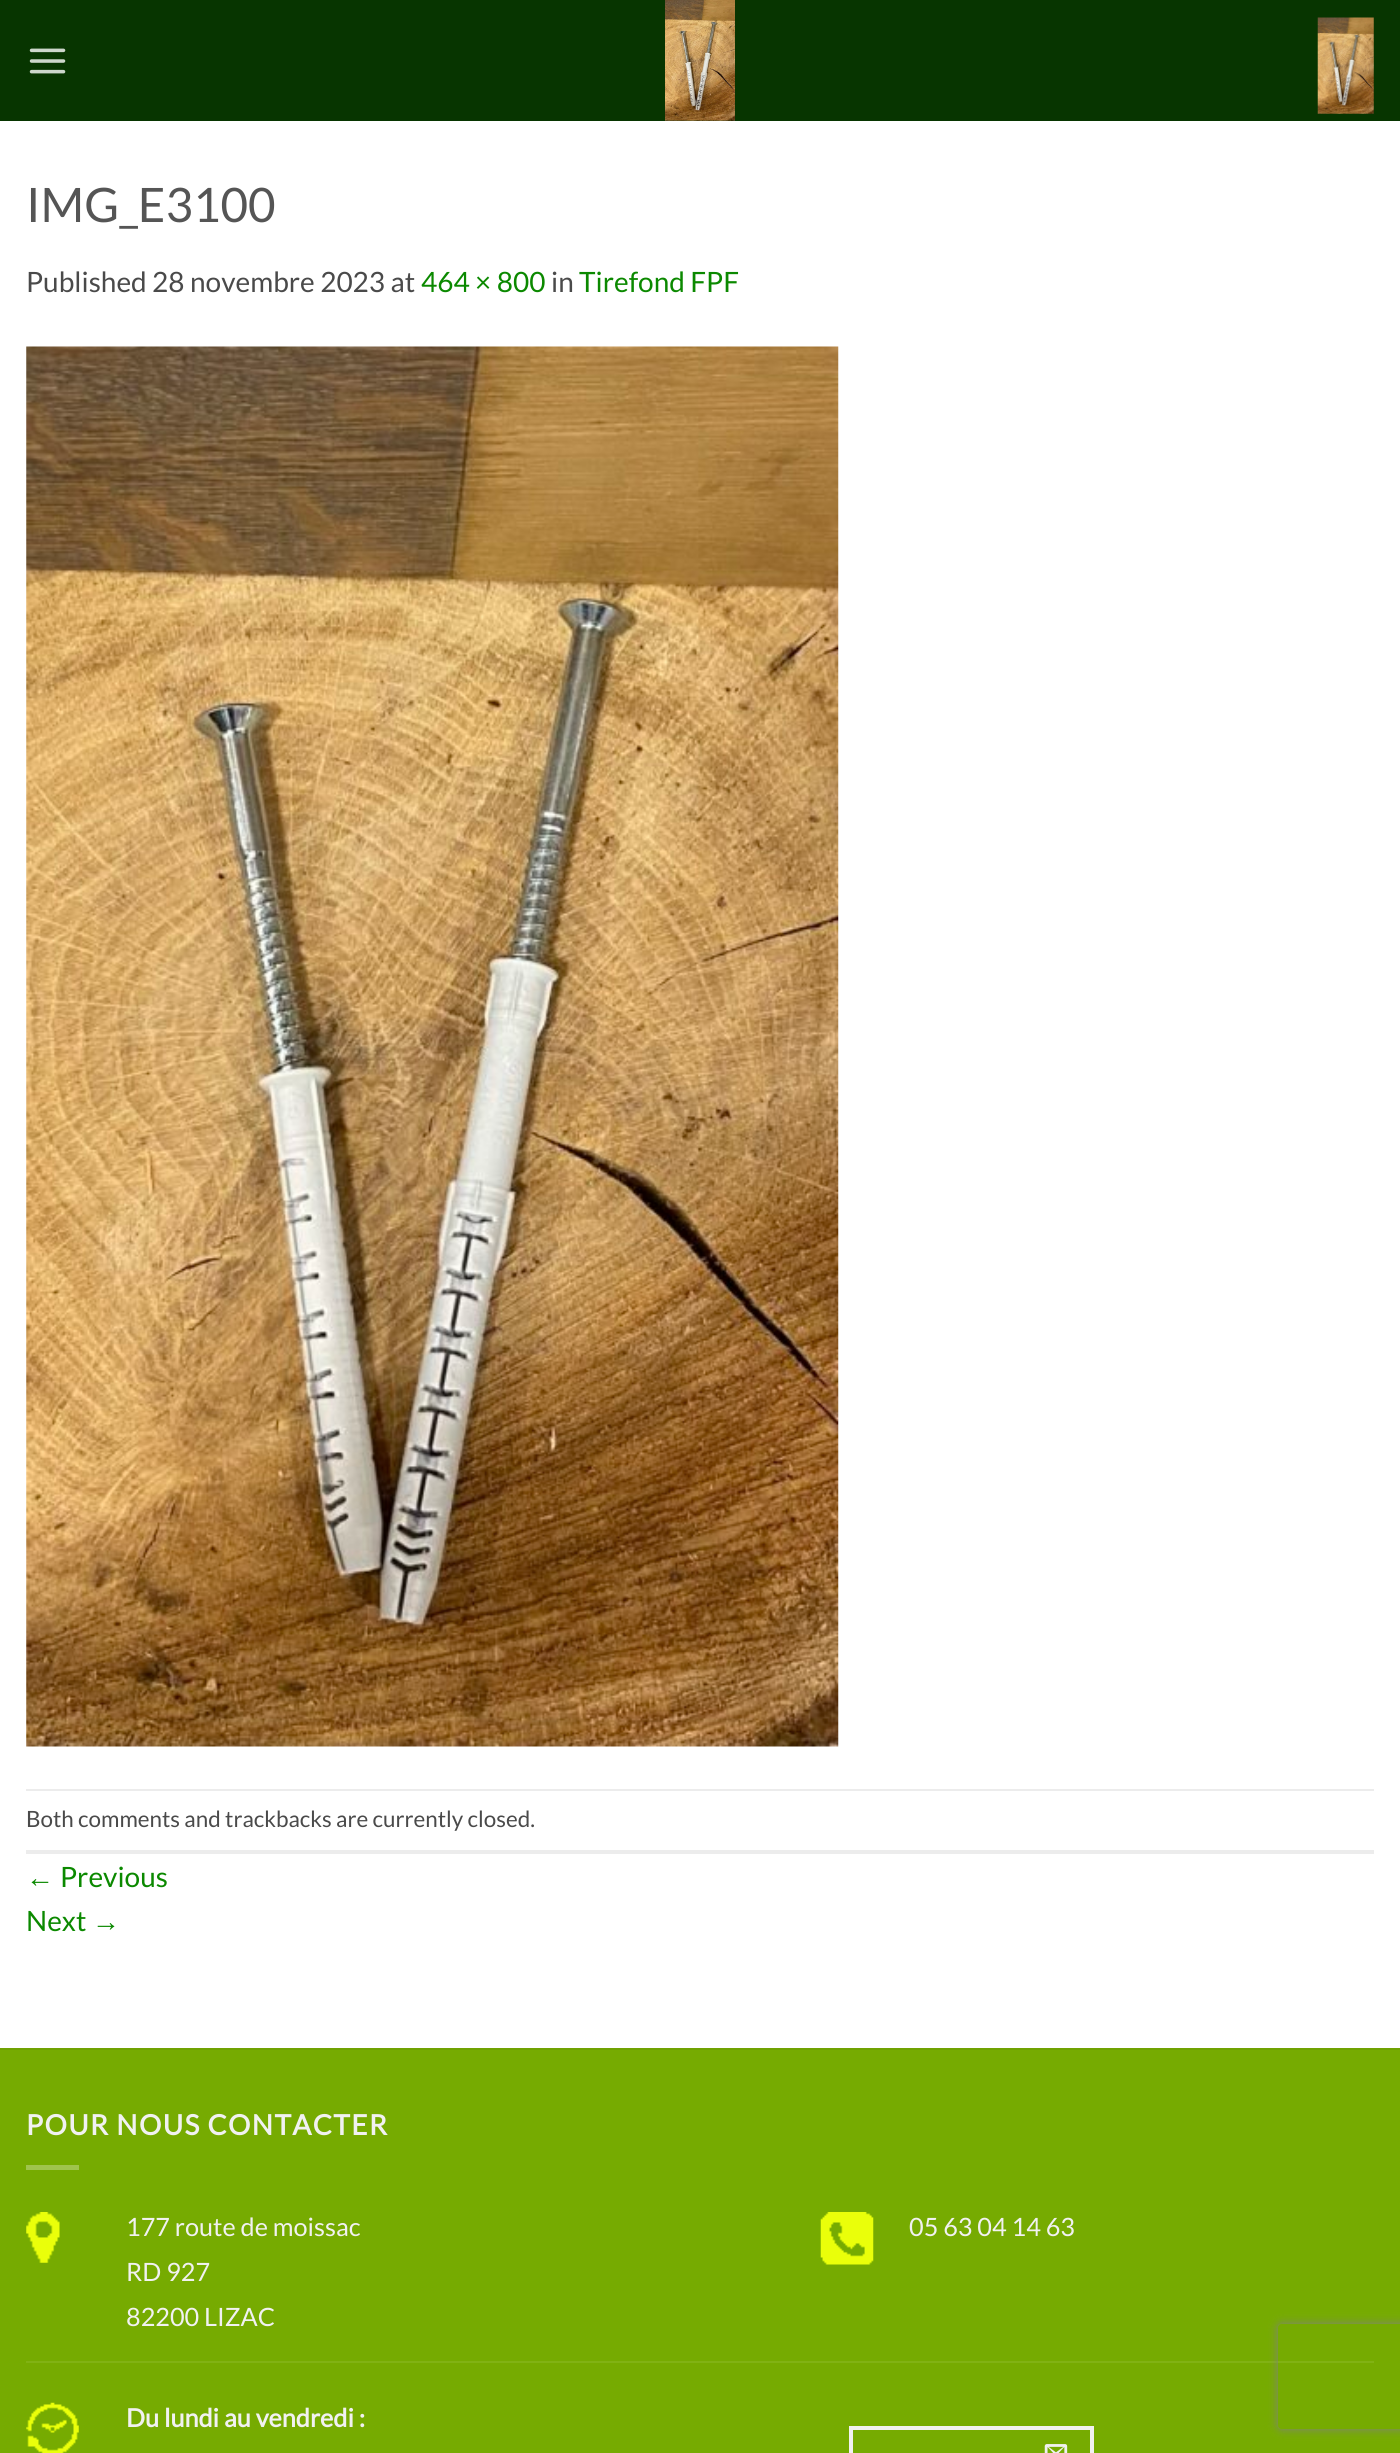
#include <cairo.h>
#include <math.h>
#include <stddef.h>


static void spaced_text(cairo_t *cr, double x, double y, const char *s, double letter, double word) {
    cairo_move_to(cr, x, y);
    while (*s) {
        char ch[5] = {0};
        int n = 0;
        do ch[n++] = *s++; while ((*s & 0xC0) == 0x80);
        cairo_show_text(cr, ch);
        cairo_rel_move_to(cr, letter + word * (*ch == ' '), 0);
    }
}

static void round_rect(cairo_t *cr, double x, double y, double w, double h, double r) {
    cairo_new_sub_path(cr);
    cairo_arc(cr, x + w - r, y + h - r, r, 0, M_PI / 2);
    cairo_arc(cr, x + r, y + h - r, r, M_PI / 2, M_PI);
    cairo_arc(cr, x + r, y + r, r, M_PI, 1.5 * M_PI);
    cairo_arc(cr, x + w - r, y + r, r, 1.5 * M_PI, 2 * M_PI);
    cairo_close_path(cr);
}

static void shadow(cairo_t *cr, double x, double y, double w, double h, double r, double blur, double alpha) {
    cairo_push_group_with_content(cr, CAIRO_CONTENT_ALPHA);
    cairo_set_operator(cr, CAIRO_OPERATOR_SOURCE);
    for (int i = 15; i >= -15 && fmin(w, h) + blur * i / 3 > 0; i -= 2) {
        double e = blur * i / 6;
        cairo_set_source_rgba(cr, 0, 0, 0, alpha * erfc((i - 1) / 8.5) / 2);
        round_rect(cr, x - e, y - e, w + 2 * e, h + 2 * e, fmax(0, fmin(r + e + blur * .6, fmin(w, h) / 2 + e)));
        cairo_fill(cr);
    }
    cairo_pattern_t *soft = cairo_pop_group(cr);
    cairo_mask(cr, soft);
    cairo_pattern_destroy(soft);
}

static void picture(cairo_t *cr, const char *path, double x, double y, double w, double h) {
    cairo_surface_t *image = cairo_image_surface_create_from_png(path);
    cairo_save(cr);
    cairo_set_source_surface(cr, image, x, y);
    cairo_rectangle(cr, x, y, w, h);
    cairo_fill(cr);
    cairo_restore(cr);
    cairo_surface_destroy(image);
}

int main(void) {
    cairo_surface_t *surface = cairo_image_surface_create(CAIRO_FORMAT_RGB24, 1400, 2453);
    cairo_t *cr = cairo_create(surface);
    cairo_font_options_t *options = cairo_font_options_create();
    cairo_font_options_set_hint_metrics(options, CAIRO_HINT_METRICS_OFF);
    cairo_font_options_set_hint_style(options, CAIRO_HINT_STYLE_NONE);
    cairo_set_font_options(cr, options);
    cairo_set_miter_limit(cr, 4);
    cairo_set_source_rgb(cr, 1, 1, 1);
    cairo_paint(cr);
    cairo_set_source_rgb(cr, 0.031, 0.208, 0);
    cairo_rectangle(cr, 0, 0, 1400, 121);
    cairo_fill(cr);
    picture(cr, "img1.png", 29, 48, 37, 26);
    picture(cr, "img2.png", 665, 0, 70, 121);
    picture(cr, "img3.png", 1317, 17, 57, 97);
    cairo_select_font_face(cr, "Lato", CAIRO_FONT_SLANT_NORMAL, CAIRO_FONT_WEIGHT_NORMAL);
    cairo_set_font_size(cr, 47.5);
    cairo_set_source_rgb(cr, 0.333, 0.333, 0.333);
    cairo_move_to(cr, 26, 222);
    cairo_show_text(cr, "IMG_E3100");
    cairo_set_font_size(cr, 28);
    cairo_set_source_rgb(cr, 0.29, 0.29, 0.29);
    cairo_move_to(cr, 26, 292);
    cairo_show_text(cr, "Published 28 novembre 2023 at");
    cairo_set_source_rgb(cr, 0.043, 0.537, 0);
    cairo_move_to(cr, 421, 292);
    cairo_show_text(cr, "464 × 800");
    cairo_set_source_rgb(cr, 0.29, 0.29, 0.29);
    cairo_move_to(cr, 551, 292);
    cairo_show_text(cr, "in");
    cairo_set_source_rgb(cr, 0.043, 0.537, 0);
    cairo_move_to(cr, 579, 292);
    cairo_show_text(cr, "Tirefond FPF");
    picture(cr, "img4.png", 26, 346, 813, 1401);
    cairo_set_source_rgb(cr, 0.925, 0.925, 0.925);
    cairo_rectangle(cr, 26, 1789, 1348, 2);
    cairo_fill(cr);
    cairo_rectangle(cr, 26, 1850, 1348, 4);
    cairo_fill(cr);
    cairo_set_font_size(cr, 22.4);
    cairo_set_source_rgb(cr, 0.29, 0.29, 0.29);
    cairo_move_to(cr, 26, 1827);
    cairo_show_text(cr, "Both comments and trackbacks are currently closed.");
    cairo_select_font_face(cr, "Liberation Sans", CAIRO_FONT_SLANT_NORMAL, CAIRO_FONT_WEIGHT_NORMAL);
    cairo_set_font_size(cr, 28);
    cairo_set_source_rgb(cr, 0.043, 0.537, 0);
    cairo_move_to(cr, 26, 1887);
    cairo_show_text(cr, "←");
    cairo_select_font_face(cr, "Lato", CAIRO_FONT_SLANT_NORMAL, CAIRO_FONT_WEIGHT_NORMAL);
    cairo_move_to(cr, 60, 1887);
    cairo_show_text(cr, "Previous");
    cairo_move_to(cr, 26, 1931);
    cairo_show_text(cr, "Next");
    cairo_select_font_face(cr, "Liberation Sans", CAIRO_FONT_SLANT_NORMAL, CAIRO_FONT_WEIGHT_NORMAL);
    cairo_move_to(cr, 92, 1931);
    cairo_show_text(cr, "→");
    cairo_set_source_rgb(cr, 0.463, 0.671, 0.004);
    cairo_rectangle(cr, 0, 2050, 1400, 403);
    cairo_fill(cr);
    cairo_set_source_rgb(cr, 0.439, 0.635, 0.004);
    cairo_rectangle(cr, 0, 2048, 1400, 2);
    cairo_fill(cr);
    cairo_select_font_face(cr, "Lato", CAIRO_FONT_SLANT_NORMAL, CAIRO_FONT_WEIGHT_BOLD);
    cairo_set_source_rgb(cr, 0.945, 0.945, 0.945);
    spaced_text(cr, 26, 2135, "POUR NOUS CONTACTER", 1.4, 0);
    cairo_set_source_rgb(cr, 0.624, 0.769, 0.302);
    cairo_rectangle(cr, 26, 2165, 53, 5);
    cairo_fill(cr);
    cairo_set_source_rgb(cr, 0.506, 0.698, 0.082);
    cairo_rectangle(cr, 26, 2361, 1348, 2);
    cairo_fill(cr);
    picture(cr, "img5.png", 26, 2212, 34, 51);
    cairo_select_font_face(cr, "Lato", CAIRO_FONT_SLANT_NORMAL, CAIRO_FONT_WEIGHT_NORMAL);
    cairo_set_font_size(cr, 25.25);
    cairo_set_source_rgb(cr, 0.945, 0.945, 0.945);
    cairo_move_to(cr, 126, 2236);
    cairo_show_text(cr, "177 route de moissac");
    cairo_move_to(cr, 126, 2281);
    cairo_show_text(cr, "RD 927");
    cairo_move_to(cr, 126, 2326);
    cairo_show_text(cr, "82200 LIZAC");
    picture(cr, "img6.png", 820, 2212, 54, 53);
    cairo_move_to(cr, 909, 2236);
    cairo_show_text(cr, "05 63 04 14 63");
    picture(cr, "img7.png", 26, 2402, 53, 51);
    cairo_select_font_face(cr, "Lato", CAIRO_FONT_SLANT_NORMAL, CAIRO_FONT_WEIGHT_BOLD);
    cairo_move_to(cr, 126, 2427);
    cairo_show_text(cr, "Du lundi au vendredi :");
    cairo_rectangle(cr, 851, 2428, 241, 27);
    cairo_set_line_width(cr, 4);
    cairo_stroke(cr);
    picture(cr, "img8.png", 1044, 2444, 24, 9);
    cairo_save(cr);
    cairo_set_fill_rule(cr, CAIRO_FILL_RULE_EVEN_ODD);
    cairo_new_path(cr);
    cairo_move_to(cr, 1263, 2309);
    cairo_line_to(cr, 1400, 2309);
    cairo_line_to(cr, 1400, 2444);
    cairo_line_to(cr, 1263, 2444);
    cairo_close_path(cr);
    cairo_move_to(cr, 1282, 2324);
    cairo_line_to(cr, 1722, 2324);
    cairo_curve_to(cr, 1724, 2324, 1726, 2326, 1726, 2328);
    cairo_line_to(cr, 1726, 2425);
    cairo_curve_to(cr, 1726, 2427, 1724, 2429, 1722, 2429);
    cairo_line_to(cr, 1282, 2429);
    cairo_curve_to(cr, 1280, 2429, 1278, 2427, 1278, 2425);
    cairo_line_to(cr, 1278, 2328);
    cairo_curve_to(cr, 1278, 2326, 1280, 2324, 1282, 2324);
    cairo_close_path(cr);
    cairo_clip(cr);
    cairo_set_source_rgb(cr, 0.502, 0.502, 0.502);
    shadow(cr, 1278, 2324, 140, 105, 4, 4.5, 1);
    cairo_restore(cr);
    cairo_surface_write_to_png(surface, "page.png");
    cairo_font_options_destroy(options);
    cairo_destroy(cr);
    cairo_surface_destroy(surface);
    return 0;
}
